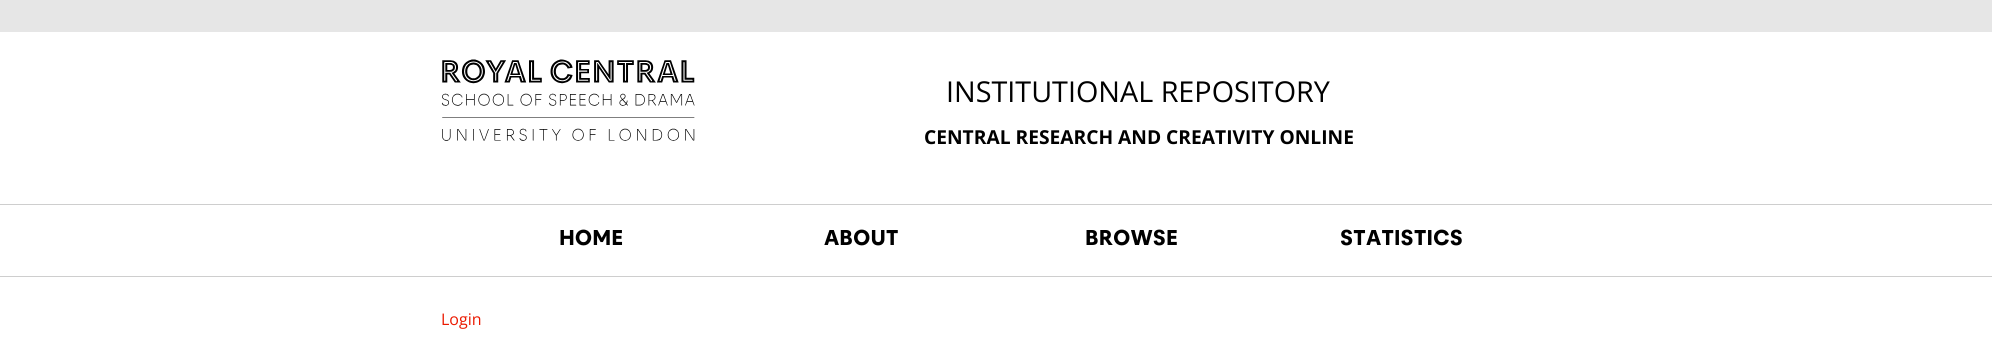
#include <cairo.h>
#include <math.h>
#include <stddef.h>


static void picture(cairo_t *cr, const char *path, double x, double y, double w, double h) {
    cairo_surface_t *image = cairo_image_surface_create_from_png(path);
    cairo_save(cr);
    cairo_set_source_surface(cr, image, x, y);
    cairo_rectangle(cr, x, y, w, h);
    cairo_fill(cr);
    cairo_restore(cr);
    cairo_surface_destroy(image);
}

int main(void) {
    cairo_surface_t *surface = cairo_image_surface_create(CAIRO_FORMAT_RGB24, 1992, 364);
    cairo_t *cr = cairo_create(surface);
    cairo_font_options_t *options = cairo_font_options_create();
    cairo_font_options_set_hint_metrics(options, CAIRO_HINT_METRICS_OFF);
    cairo_font_options_set_hint_style(options, CAIRO_HINT_STYLE_NONE);
    cairo_set_font_options(cr, options);
    cairo_set_miter_limit(cr, 4);
    cairo_set_source_rgb(cr, 1, 1, 1);
    cairo_paint(cr);
    cairo_set_source_rgb(cr, 0.902, 0.902, 0.902);
    cairo_rectangle(cr, 0, 0, 1992, 32);
    cairo_fill(cr);
    picture(cr, "img1.png", 441, 59, 254, 82);
    cairo_select_font_face(cr, "Open Sans", CAIRO_FONT_SLANT_NORMAL, CAIRO_FONT_WEIGHT_NORMAL);
    cairo_set_font_size(cr, 28.75);
    cairo_set_source_rgb(cr, 0, 0, 0);
    cairo_move_to(cr, 946, 102);
    cairo_show_text(cr, "INSTITUTIONAL REPOSITORY");
    cairo_select_font_face(cr, "Open Sans", CAIRO_FONT_SLANT_NORMAL, CAIRO_FONT_WEIGHT_BOLD);
    cairo_set_font_size(cr, 19.2);
    cairo_move_to(cr, 924, 144);
    cairo_show_text(cr, "CENTRAL RESEARCH AND CREATIVITY ONLINE");
    cairo_set_source_rgb(cr, 0.808, 0.808, 0.808);
    cairo_rectangle(cr, 0, 204, 1992, 1);
    cairo_fill(cr);
    cairo_rectangle(cr, 0, 276, 1992, 1);
    cairo_fill(cr);
    cairo_select_font_face(cr, "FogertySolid", CAIRO_FONT_SLANT_NORMAL, CAIRO_FONT_WEIGHT_NORMAL);
    cairo_set_font_size(cr, 22.5);
    cairo_set_source_rgb(cr, 0, 0, 0);
    cairo_move_to(cr, 559, 245);
    cairo_show_text(cr, "HOME");
    cairo_move_to(cr, 824, 245);
    cairo_show_text(cr, "ABOUT");
    cairo_move_to(cr, 1085, 245);
    cairo_show_text(cr, "BROWSE");
    cairo_move_to(cr, 1340, 245);
    cairo_show_text(cr, "STATISTICS");
    cairo_select_font_face(cr, "Open Sans", CAIRO_FONT_SLANT_NORMAL, CAIRO_FONT_WEIGHT_NORMAL);
    cairo_set_font_size(cr, 16);
    cairo_set_source_rgb(cr, 0.918, 0.098, 0);
    cairo_move_to(cr, 441, 325);
    cairo_show_text(cr, "Login");
    cairo_surface_write_to_png(surface, "page.png");
    cairo_font_options_destroy(options);
    cairo_destroy(cr);
    cairo_surface_destroy(surface);
    return 0;
}
